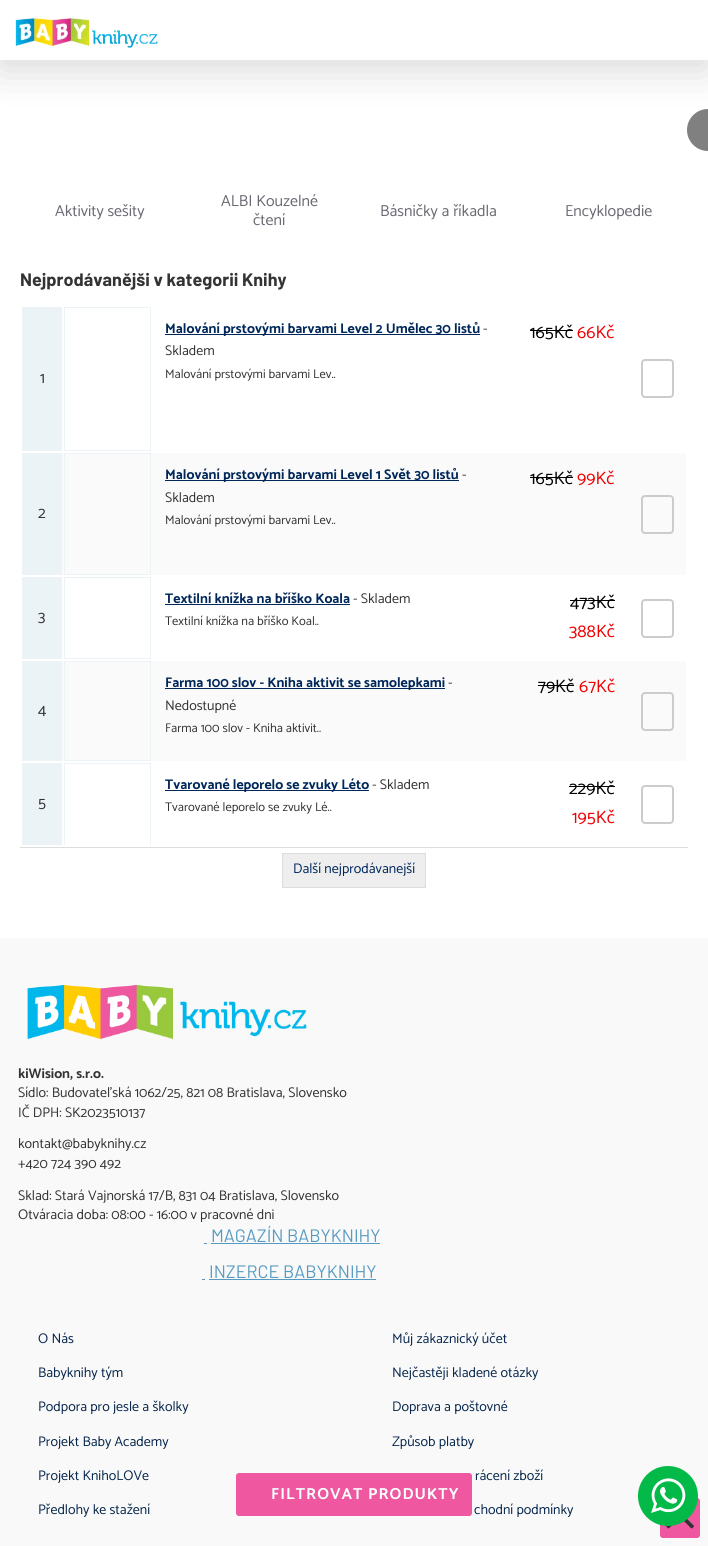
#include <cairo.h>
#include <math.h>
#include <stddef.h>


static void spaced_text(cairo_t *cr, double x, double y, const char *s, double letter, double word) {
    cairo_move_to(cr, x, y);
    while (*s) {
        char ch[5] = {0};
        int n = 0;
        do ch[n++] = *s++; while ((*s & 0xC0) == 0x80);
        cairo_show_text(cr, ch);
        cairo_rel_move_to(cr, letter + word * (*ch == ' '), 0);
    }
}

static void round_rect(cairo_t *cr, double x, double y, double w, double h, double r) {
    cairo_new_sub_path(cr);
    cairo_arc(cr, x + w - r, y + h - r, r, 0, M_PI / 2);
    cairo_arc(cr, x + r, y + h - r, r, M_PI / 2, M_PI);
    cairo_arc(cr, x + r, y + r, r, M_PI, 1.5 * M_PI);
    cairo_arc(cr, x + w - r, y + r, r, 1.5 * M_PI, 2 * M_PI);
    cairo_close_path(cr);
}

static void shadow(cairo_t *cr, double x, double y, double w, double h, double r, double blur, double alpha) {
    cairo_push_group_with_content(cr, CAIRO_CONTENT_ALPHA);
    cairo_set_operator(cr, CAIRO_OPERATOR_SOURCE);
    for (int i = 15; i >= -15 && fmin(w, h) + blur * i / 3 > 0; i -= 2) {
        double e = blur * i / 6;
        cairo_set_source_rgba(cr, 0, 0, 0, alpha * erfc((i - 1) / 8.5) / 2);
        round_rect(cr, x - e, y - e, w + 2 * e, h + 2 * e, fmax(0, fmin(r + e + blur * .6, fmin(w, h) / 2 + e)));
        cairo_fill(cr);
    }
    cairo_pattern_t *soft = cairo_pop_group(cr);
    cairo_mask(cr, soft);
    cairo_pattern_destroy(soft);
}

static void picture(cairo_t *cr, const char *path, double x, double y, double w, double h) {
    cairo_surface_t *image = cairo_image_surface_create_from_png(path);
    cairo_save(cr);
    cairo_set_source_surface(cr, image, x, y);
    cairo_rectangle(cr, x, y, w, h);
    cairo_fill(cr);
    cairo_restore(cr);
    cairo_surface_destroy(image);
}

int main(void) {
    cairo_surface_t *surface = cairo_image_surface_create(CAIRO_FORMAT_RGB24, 708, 1546);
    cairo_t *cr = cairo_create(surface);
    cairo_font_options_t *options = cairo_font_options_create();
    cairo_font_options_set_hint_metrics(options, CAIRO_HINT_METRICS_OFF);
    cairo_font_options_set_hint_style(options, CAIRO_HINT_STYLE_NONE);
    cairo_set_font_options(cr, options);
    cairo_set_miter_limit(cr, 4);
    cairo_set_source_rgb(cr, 1, 1, 1);
    cairo_paint(cr);
    cairo_set_source_rgb(cr, 0.502, 0.502, 0.502);
    cairo_arc(cr, 708, 130, 23, 0, 2 * M_PI);
    cairo_fill_preserve(cr);
    cairo_set_source_rgb(cr, 1, 1, 1);
    cairo_set_line_width(cr, 4);
    cairo_stroke(cr);
    cairo_set_source_rgb(cr, 0, 0, 0);
    shadow(cr, 0, -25, 708, 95, 0, 20, 0.15);
    cairo_set_source_rgb(cr, 1, 1, 1);
    cairo_rectangle(cr, 0, 0, 708, 60);
    cairo_fill(cr);
    picture(cr, "img1.png", 15, 18, 143, 30);
    cairo_select_font_face(cr, "Catamaran Thin", CAIRO_FONT_SLANT_NORMAL, CAIRO_FONT_WEIGHT_NORMAL);
    cairo_set_font_size(cr, 16);
    cairo_set_source_rgb(cr, 0.412, 0.412, 0.451);
    cairo_move_to(cr, 55, 216);
    cairo_show_text(cr, "Aktivity sešity");
    cairo_move_to(cr, 221, 206);
    cairo_show_text(cr, "ALBI Kouzelné");
    cairo_move_to(cr, 253, 225);
    cairo_show_text(cr, "čtení");
    cairo_move_to(cr, 380, 216);
    cairo_show_text(cr, "Básničky a říkadla");
    cairo_move_to(cr, 565, 216);
    cairo_show_text(cr, "Encyklopedie");
    cairo_select_font_face(cr, "Barlow", CAIRO_FONT_SLANT_NORMAL, CAIRO_FONT_WEIGHT_BOLD);
    cairo_set_font_size(cr, 18);
    cairo_set_source_rgb(cr, 0.2, 0.2, 0.2);
    cairo_move_to(cr, 20, 286);
    cairo_show_text(cr, "Nejprodávanějši v kategorii Knihy");
    cairo_rectangle(cr, 64.5, 307.5, 86, 143);
    cairo_set_source_rgb(cr, 0.925, 0.953, 0.965);
    cairo_set_line_width(cr, 1);
    cairo_stroke(cr);
    cairo_set_source_rgb(cr, 0, 0.153, 0.353);
    cairo_rectangle(cr, 165, 334, 315, 1);
    cairo_fill(cr);
    cairo_select_font_face(cr, "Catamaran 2 Thin", CAIRO_FONT_SLANT_NORMAL, CAIRO_FONT_WEIGHT_NORMAL);
    cairo_set_font_size(cr, 14);
    cairo_move_to(cr, 165, 333);
    cairo_show_text(cr, "Malování prstovými barvami Level 2 Umělec 30 listů");
    cairo_select_font_face(cr, "Catamaran Thin", CAIRO_FONT_SLANT_NORMAL, CAIRO_FONT_WEIGHT_NORMAL);
    cairo_set_source_rgb(cr, 0.2, 0.2, 0.2);
    cairo_move_to(cr, 483, 333);
    cairo_show_text(cr, "-");
    cairo_move_to(cr, 165, 355);
    cairo_show_text(cr, "Skladem");
    cairo_set_font_size(cr, 12.6);
    cairo_move_to(cr, 165, 378);
    cairo_show_text(cr, "Malování prstovými barvami Lev..");
    cairo_set_font_size(cr, 18);
    cairo_set_source_rgb(cr, 0, 0, 0);
    cairo_move_to(cr, 530, 338);
    cairo_show_text(cr, "165Kč");
    cairo_rectangle(cr, 530, 330, 43, 1);
    cairo_fill(cr);
    cairo_set_source_rgb(cr, 0.941, 0, 0);
    cairo_move_to(cr, 577, 338);
    cairo_show_text(cr, "66Kč");
    cairo_set_source_rgb(cr, 0.925, 0.953, 0.965);
    cairo_rectangle(cr, 22, 307, 40, 144);
    cairo_fill(cr);
    cairo_set_font_size(cr, 16);
    cairo_set_source_rgb(cr, 0.2, 0.2, 0.2);
    cairo_move_to(cr, 40, 383);
    cairo_show_text(cr, "1");
    round_rect(cr, 642, 360, 31, 37, 3);
    cairo_set_source_rgb(cr, 0.8, 0.8, 0.8);
    cairo_set_line_width(cr, 2);
    cairo_stroke(cr);
    cairo_set_source_rgb(cr, 0.98, 0.98, 0.98);
    cairo_rectangle(cr, 62, 453, 624, 122);
    cairo_fill(cr);
    cairo_rectangle(cr, 64.5, 453.5, 86, 121);
    cairo_set_source_rgb(cr, 0.925, 0.953, 0.965);
    cairo_set_line_width(cr, 1);
    cairo_stroke(cr);
    cairo_set_source_rgb(cr, 0, 0.153, 0.353);
    cairo_rectangle(cr, 165, 480, 294, 1);
    cairo_fill(cr);
    cairo_select_font_face(cr, "Catamaran 2 Thin", CAIRO_FONT_SLANT_NORMAL, CAIRO_FONT_WEIGHT_NORMAL);
    cairo_set_font_size(cr, 14);
    cairo_move_to(cr, 165, 479);
    cairo_show_text(cr, "Malování prstovými barvami Level 1 Svět 30 listů");
    cairo_select_font_face(cr, "Catamaran Thin", CAIRO_FONT_SLANT_NORMAL, CAIRO_FONT_WEIGHT_NORMAL);
    cairo_set_source_rgb(cr, 0.2, 0.2, 0.2);
    cairo_move_to(cr, 462, 479);
    cairo_show_text(cr, "-");
    cairo_move_to(cr, 165, 502);
    cairo_show_text(cr, "Skladem");
    cairo_set_font_size(cr, 12.6);
    cairo_move_to(cr, 165, 524);
    cairo_show_text(cr, "Malování prstovými barvami Lev..");
    cairo_set_font_size(cr, 18);
    cairo_set_source_rgb(cr, 0, 0, 0);
    cairo_move_to(cr, 530, 484);
    cairo_show_text(cr, "165Kč");
    cairo_rectangle(cr, 530, 477, 43, 1);
    cairo_fill(cr);
    cairo_set_source_rgb(cr, 0.941, 0, 0);
    cairo_move_to(cr, 577, 484);
    cairo_show_text(cr, "99Kč");
    cairo_set_source_rgb(cr, 0.925, 0.953, 0.965);
    cairo_rectangle(cr, 22, 453, 40, 122);
    cairo_fill(cr);
    cairo_set_font_size(cr, 16);
    cairo_set_source_rgb(cr, 0.2, 0.2, 0.2);
    cairo_move_to(cr, 38, 518);
    cairo_show_text(cr, "2");
    round_rect(cr, 642, 496, 31, 37, 3);
    cairo_set_source_rgb(cr, 0.8, 0.8, 0.8);
    cairo_set_line_width(cr, 2);
    cairo_stroke(cr);
    cairo_set_source_rgb(cr, 0.925, 0.953, 0.965);
    cairo_rectangle(cr, 22, 577, 40, 82);
    cairo_fill(cr);
    cairo_set_source_rgb(cr, 0.2, 0.2, 0.2);
    cairo_move_to(cr, 38, 622);
    cairo_show_text(cr, "3");
    cairo_rectangle(cr, 64.5, 577.5, 86, 81);
    cairo_set_source_rgb(cr, 0.925, 0.953, 0.965);
    cairo_set_line_width(cr, 1);
    cairo_stroke(cr);
    cairo_select_font_face(cr, "Catamaran 2 Thin", CAIRO_FONT_SLANT_NORMAL, CAIRO_FONT_WEIGHT_NORMAL);
    cairo_set_font_size(cr, 14);
    cairo_set_source_rgb(cr, 0, 0.153, 0.353);
    cairo_move_to(cr, 165, 603);
    cairo_show_text(cr, "Textilní knížka na bříško Koala");
    cairo_rectangle(cr, 165, 604, 185, 1);
    cairo_fill(cr);
    cairo_select_font_face(cr, "Catamaran Thin", CAIRO_FONT_SLANT_NORMAL, CAIRO_FONT_WEIGHT_NORMAL);
    cairo_set_source_rgb(cr, 0.2, 0.2, 0.2);
    cairo_move_to(cr, 353, 603);
    cairo_show_text(cr, "- Skladem");
    cairo_set_font_size(cr, 12.6);
    cairo_move_to(cr, 165, 625);
    cairo_show_text(cr, "Textilní knížka na bříško Koal..");
    cairo_set_font_size(cr, 18);
    cairo_set_source_rgb(cr, 0, 0, 0);
    cairo_move_to(cr, 570, 608);
    cairo_show_text(cr, "473Kč");
    cairo_rectangle(cr, 570, 600, 45, 1);
    cairo_fill(cr);
    cairo_set_source_rgb(cr, 0.941, 0, 0);
    cairo_move_to(cr, 569, 637);
    cairo_show_text(cr, "388Kč");
    round_rect(cr, 642, 600, 31, 37, 3);
    cairo_set_source_rgb(cr, 0.8, 0.8, 0.8);
    cairo_set_line_width(cr, 2);
    cairo_stroke(cr);
    cairo_set_source_rgb(cr, 0.98, 0.98, 0.98);
    cairo_rectangle(cr, 62, 661, 624, 100);
    cairo_fill(cr);
    cairo_rectangle(cr, 64.5, 661.5, 86, 99);
    cairo_set_source_rgb(cr, 0.925, 0.953, 0.965);
    cairo_set_line_width(cr, 1);
    cairo_stroke(cr);
    cairo_set_source_rgb(cr, 0, 0.153, 0.353);
    cairo_rectangle(cr, 165, 688, 280, 1);
    cairo_fill(cr);
    cairo_select_font_face(cr, "Catamaran 2 Thin", CAIRO_FONT_SLANT_NORMAL, CAIRO_FONT_WEIGHT_NORMAL);
    cairo_set_font_size(cr, 14);
    cairo_move_to(cr, 165, 687);
    cairo_show_text(cr, "Farma 100 slov - Kniha aktivit se samolepkami");
    cairo_select_font_face(cr, "Catamaran Thin", CAIRO_FONT_SLANT_NORMAL, CAIRO_FONT_WEIGHT_NORMAL);
    cairo_set_source_rgb(cr, 0.2, 0.2, 0.2);
    cairo_move_to(cr, 448, 687);
    cairo_show_text(cr, "-");
    cairo_move_to(cr, 165, 710);
    cairo_show_text(cr, "Nedostupné");
    cairo_set_font_size(cr, 12.6);
    cairo_move_to(cr, 165, 732);
    cairo_show_text(cr, "Farma 100 slov - Kniha aktivit..");
    cairo_set_font_size(cr, 18);
    cairo_set_source_rgb(cr, 0, 0, 0);
    cairo_move_to(cr, 538, 692);
    cairo_show_text(cr, "79Kč");
    cairo_rectangle(cr, 538, 685, 36, 1);
    cairo_fill(cr);
    cairo_set_source_rgb(cr, 0.941, 0, 0);
    cairo_move_to(cr, 579, 692);
    cairo_show_text(cr, "67Kč");
    cairo_set_source_rgb(cr, 0.925, 0.953, 0.965);
    cairo_rectangle(cr, 22, 661, 40, 100);
    cairo_fill(cr);
    cairo_set_font_size(cr, 16);
    cairo_set_source_rgb(cr, 0.2, 0.2, 0.2);
    cairo_move_to(cr, 38, 715);
    cairo_show_text(cr, "4");
    round_rect(cr, 642, 693, 31, 37, 3);
    cairo_set_source_rgb(cr, 0.8, 0.8, 0.8);
    cairo_set_line_width(cr, 2);
    cairo_stroke(cr);
    cairo_set_source_rgb(cr, 0.925, 0.953, 0.965);
    cairo_rectangle(cr, 22, 763, 40, 82);
    cairo_fill(cr);
    cairo_set_source_rgb(cr, 0.2, 0.2, 0.2);
    cairo_move_to(cr, 38, 808);
    cairo_show_text(cr, "5");
    cairo_set_source_rgb(cr, 0.925, 0.953, 0.965);
    cairo_rectangle(cr, 64, 763, 87, 1);
    cairo_fill(cr);
    cairo_rectangle(cr, 150, 763, 1, 82);
    cairo_fill(cr);
    cairo_rectangle(cr, 64, 763, 1, 82);
    cairo_fill(cr);
    cairo_set_source_rgb(cr, 0, 0.153, 0.353);
    cairo_rectangle(cr, 165, 790, 204, 1);
    cairo_fill(cr);
    cairo_select_font_face(cr, "Catamaran 2 Thin", CAIRO_FONT_SLANT_NORMAL, CAIRO_FONT_WEIGHT_NORMAL);
    cairo_set_font_size(cr, 14);
    cairo_move_to(cr, 165, 789);
    cairo_show_text(cr, "Tvarované leporelo se zvuky Léto");
    cairo_select_font_face(cr, "Catamaran Thin", CAIRO_FONT_SLANT_NORMAL, CAIRO_FONT_WEIGHT_NORMAL);
    cairo_set_source_rgb(cr, 0.2, 0.2, 0.2);
    cairo_move_to(cr, 372, 789);
    cairo_show_text(cr, "- Skladem");
    cairo_set_font_size(cr, 12.6);
    cairo_move_to(cr, 165, 811);
    cairo_show_text(cr, "Tvarované leporelo se zvuky Lé..");
    cairo_set_font_size(cr, 18);
    cairo_set_source_rgb(cr, 0, 0, 0);
    cairo_move_to(cr, 569, 794);
    cairo_show_text(cr, "229Kč");
    cairo_rectangle(cr, 569, 786, 46, 1);
    cairo_fill(cr);
    cairo_set_source_rgb(cr, 0.941, 0, 0);
    cairo_move_to(cr, 572, 823);
    cairo_show_text(cr, "195Kč");
    round_rect(cr, 642, 786, 31, 37, 3);
    cairo_set_source_rgb(cr, 0.8, 0.8, 0.8);
    cairo_stroke(cr);
    cairo_set_source_rgb(cr, 0.867, 0.867, 0.867);
    cairo_rectangle(cr, 20, 847, 668, 1);
    cairo_fill(cr);
    cairo_set_source_rgb(cr, 0.933, 0.933, 0.933);
    cairo_rectangle(cr, 282.5, 853.5, 143, 34);
    cairo_fill_preserve(cr);
    cairo_set_source_rgb(cr, 0.867, 0.867, 0.867);
    cairo_set_line_width(cr, 1);
    cairo_stroke(cr);
    cairo_set_font_size(cr, 14);
    cairo_set_source_rgb(cr, 0, 0.153, 0.353);
    cairo_move_to(cr, 293, 873);
    cairo_show_text(cr, "Další nejprodávanejší");
    cairo_set_source_rgb(cr, 0.973, 0.973, 0.973);
    cairo_rectangle(cr, 0, 938, 708, 608);
    cairo_fill(cr);
    picture(cr, "img2.png", 27, 984, 280, 56);
    cairo_select_font_face(cr, "Catamaran 2 Thin", CAIRO_FONT_SLANT_NORMAL, CAIRO_FONT_WEIGHT_NORMAL);
    cairo_set_source_rgb(cr, 0.2, 0.2, 0.2);
    cairo_move_to(cr, 18, 1078);
    cairo_show_text(cr, "kiWision, s.r.o.");
    cairo_select_font_face(cr, "Catamaran Thin", CAIRO_FONT_SLANT_NORMAL, CAIRO_FONT_WEIGHT_NORMAL);
    cairo_move_to(cr, 18, 1097);
    cairo_show_text(cr, "Sídlo: Budovateľská 1062/25, 821 08 Bratislava, Slovensko");
    cairo_move_to(cr, 18, 1117);
    cairo_show_text(cr, "IČ DPH: SK2023510137");
    cairo_move_to(cr, 18, 1148);
    cairo_show_text(cr, "kontakt@babyknihy.cz");
    cairo_move_to(cr, 18, 1168);
    cairo_show_text(cr, "+420 724 390 492");
    cairo_move_to(cr, 18, 1200);
    cairo_show_text(cr, "Sklad: Stará Vajnorská 17/B, 831 04 Bratislava, Slovensko");
    cairo_move_to(cr, 18, 1219);
    cairo_show_text(cr, "Otváracia doba: 08:00 - 16:00 v pracovné dni");
    cairo_select_font_face(cr, "Barlow", CAIRO_FONT_SLANT_NORMAL, CAIRO_FONT_WEIGHT_NORMAL);
    cairo_set_font_size(cr, 18);
    cairo_set_source_rgb(cr, 0.341, 0.604, 0.757);
    cairo_move_to(cr, 211, 1242);
    cairo_show_text(cr, "MAGAZÍN BABYKNIHY");
    cairo_rectangle(cr, 211, 1243, 169, 1);
    cairo_fill(cr);
    cairo_rectangle(cr, 204, 1243, 3, 1);
    cairo_fill(cr);
    cairo_move_to(cr, 209, 1278);
    cairo_show_text(cr, "INZERCE BABYKNIHY");
    cairo_rectangle(cr, 209, 1279, 167, 1);
    cairo_fill(cr);
    cairo_rectangle(cr, 202, 1279, 3, 1);
    cairo_fill(cr);
    cairo_select_font_face(cr, "Catamaran Thin", CAIRO_FONT_SLANT_NORMAL, CAIRO_FONT_WEIGHT_NORMAL);
    cairo_set_font_size(cr, 14);
    cairo_set_source_rgb(cr, 0.031, 0.153, 0.302);
    cairo_move_to(cr, 38, 1343);
    cairo_show_text(cr, "O Nás");
    cairo_move_to(cr, 38, 1377);
    cairo_show_text(cr, "Babyknihy tým");
    cairo_move_to(cr, 38, 1411);
    cairo_show_text(cr, "Podpora pro jesle a školky");
    cairo_move_to(cr, 38, 1446);
    cairo_show_text(cr, "Projekt Baby Academy");
    cairo_move_to(cr, 38, 1480);
    cairo_show_text(cr, "Projekt KnihoLOVe");
    cairo_move_to(cr, 38, 1514);
    cairo_show_text(cr, "Předlohy ke stažení");
    cairo_move_to(cr, 392, 1343);
    cairo_show_text(cr, "Můj zákaznický účet");
    cairo_move_to(cr, 392, 1377);
    cairo_show_text(cr, "Nejčastěji kladené otázky");
    cairo_move_to(cr, 392, 1411);
    cairo_show_text(cr, "Doprava a poštovné");
    cairo_move_to(cr, 392, 1446);
    cairo_show_text(cr, "Způsob platby");
    cairo_move_to(cr, 475, 1480);
    cairo_show_text(cr, "rácení zboží");
    cairo_move_to(cr, 474, 1514);
    cairo_show_text(cr, "chodní podmínky");
    cairo_set_source_rgb(cr, 0.937, 0.341, 0.627);
    round_rect(cr, 660, 1498, 40, 40, 3);
    cairo_fill(cr);
    picture(cr, "img4.png", 666, 1519, 28, 10);
    cairo_set_source_rgb(cr, 0.012, 0.725, 0.282);
    cairo_arc(cr, 668, 1496, 30, 0, 2 * M_PI);
    cairo_fill(cr);
    picture(cr, "img3.png", 651, 1478, 35, 35);
    cairo_set_source_rgb(cr, 0.937, 0.341, 0.627);
    round_rect(cr, 236, 1473, 236, 43, 3);
    cairo_fill(cr);
    cairo_select_font_face(cr, "Catamaran 2 Thin", CAIRO_FONT_SLANT_NORMAL, CAIRO_FONT_WEIGHT_NORMAL);
    cairo_set_font_size(cr, 16);
    cairo_set_source_rgb(cr, 0.976, 1, 1);
    spaced_text(cr, 271, 1499, "FILTROVAT PRODUKTY", 1, 0);
    cairo_surface_write_to_png(surface, "page.png");
    cairo_font_options_destroy(options);
    cairo_destroy(cr);
    cairo_surface_destroy(surface);
    return 0;
}
